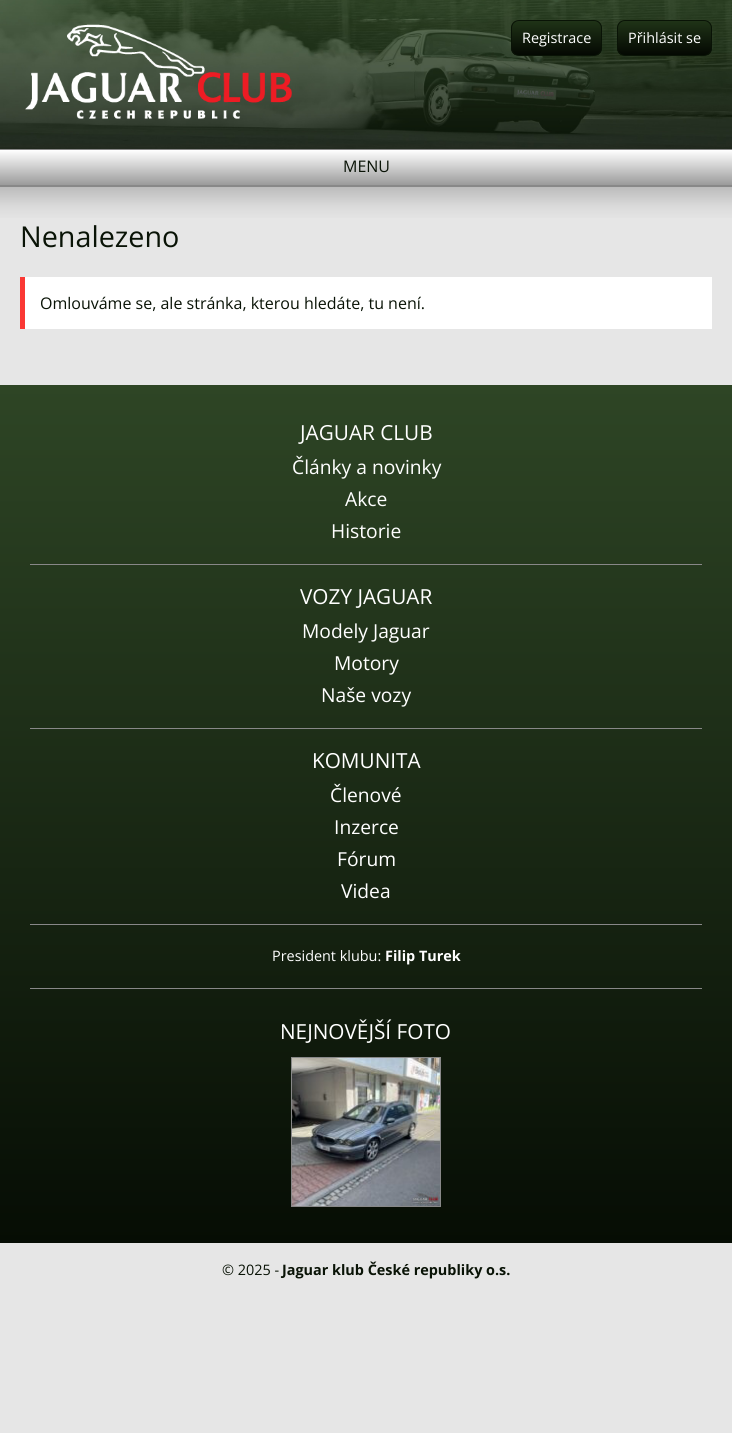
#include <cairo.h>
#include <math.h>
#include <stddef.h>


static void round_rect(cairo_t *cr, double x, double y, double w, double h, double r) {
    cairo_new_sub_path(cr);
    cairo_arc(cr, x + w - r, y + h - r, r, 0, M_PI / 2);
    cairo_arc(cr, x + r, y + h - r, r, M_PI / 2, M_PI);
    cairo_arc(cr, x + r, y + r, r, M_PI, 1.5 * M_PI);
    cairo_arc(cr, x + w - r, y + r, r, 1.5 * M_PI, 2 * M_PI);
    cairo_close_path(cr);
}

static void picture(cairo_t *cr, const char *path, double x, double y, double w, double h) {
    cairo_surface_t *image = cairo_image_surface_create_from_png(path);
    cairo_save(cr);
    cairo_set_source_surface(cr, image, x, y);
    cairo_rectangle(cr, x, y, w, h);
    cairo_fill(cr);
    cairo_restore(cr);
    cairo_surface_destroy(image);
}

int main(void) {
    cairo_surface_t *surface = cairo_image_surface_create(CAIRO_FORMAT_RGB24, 732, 1433);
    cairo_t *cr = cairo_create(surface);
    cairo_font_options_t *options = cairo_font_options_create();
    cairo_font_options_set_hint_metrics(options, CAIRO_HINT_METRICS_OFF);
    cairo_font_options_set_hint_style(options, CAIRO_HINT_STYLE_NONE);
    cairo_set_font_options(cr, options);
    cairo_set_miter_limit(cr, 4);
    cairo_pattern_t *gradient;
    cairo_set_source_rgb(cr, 0.902, 0.902, 0.902);
    cairo_paint(cr);
    picture(cr, "img1.png", 0, 0, 732, 149);
    picture(cr, "img2.png", 25, 24, 267, 95);
    cairo_save(cr);
    round_rect(cr, 511, 20, 91, 36, 8);
    cairo_clip(cr);
    gradient = cairo_pattern_create_linear(557, 21, 557, 55);
    cairo_pattern_add_color_stop_rgba(gradient, 0, 0.122, 0.2, 0.09, 1);
    cairo_pattern_add_color_stop_rgba(gradient, 1, 0.016, 0.031, 0.008, 1);
    cairo_set_source(cr, gradient);
    cairo_pattern_destroy(gradient);
    cairo_rectangle(cr, 511, 21, 91, 34);
    cairo_fill(cr);
    cairo_restore(cr);
    round_rect(cr, 511.5, 20.5, 90, 35, 7.5);
    cairo_set_source_rgb(cr, 0.039, 0.075, 0.027);
    cairo_set_line_width(cr, 1);
    cairo_stroke(cr);
    cairo_select_font_face(cr, "Open Sans", CAIRO_FONT_SLANT_NORMAL, CAIRO_FONT_WEIGHT_NORMAL);
    cairo_set_font_size(cr, 14.4);
    cairo_set_source_rgb(cr, 1, 1, 1);
    cairo_move_to(cr, 522, 43);
    cairo_show_text(cr, "Registrace");
    cairo_save(cr);
    round_rect(cr, 617, 20, 95, 36, 8);
    cairo_clip(cr);
    gradient = cairo_pattern_create_linear(665, 21, 665, 55);
    cairo_pattern_add_color_stop_rgba(gradient, 0, 0.122, 0.2, 0.09, 1);
    cairo_pattern_add_color_stop_rgba(gradient, 1, 0.016, 0.031, 0.008, 1);
    cairo_set_source(cr, gradient);
    cairo_pattern_destroy(gradient);
    cairo_rectangle(cr, 617, 21, 95, 34);
    cairo_fill(cr);
    cairo_restore(cr);
    round_rect(cr, 617.5, 20.5, 94, 35, 7.5);
    cairo_set_source_rgb(cr, 0.039, 0.075, 0.027);
    cairo_stroke(cr);
    cairo_set_source_rgb(cr, 1, 1, 1);
    cairo_move_to(cr, 628, 43);
    cairo_show_text(cr, "Přihlásit se");
    gradient = cairo_pattern_create_linear(366, 150, 366, 185);
    cairo_pattern_add_color_stop_rgba(gradient, 0, 1, 1, 1, 1);
    cairo_pattern_add_color_stop_rgba(gradient, 1, 0.608, 0.608, 0.608, 1);
    cairo_set_source(cr, gradient);
    cairo_pattern_destroy(gradient);
    cairo_rectangle(cr, 0, 150, 732, 35);
    cairo_fill(cr);
    cairo_set_source_rgb(cr, 0.533, 0.533, 0.533);
    cairo_rectangle(cr, 0, 149, 732, 1);
    cairo_fill(cr);
    cairo_set_font_size(cr, 16);
    cairo_set_source_rgb(cr, 0.039, 0.075, 0.027);
    cairo_move_to(cr, 343, 172);
    cairo_show_text(cr, "MENU");
    cairo_set_source_rgb(cr, 0.533, 0.533, 0.533);
    cairo_rectangle(cr, 0, 185, 732, 2);
    cairo_fill(cr);
    gradient = cairo_pattern_create_linear(366, 186, 366, 221);
    cairo_pattern_add_color_stop_rgba(gradient, 0, 0.729, 0.729, 0.729, 1);
    cairo_pattern_add_color_stop_rgba(gradient, 0.6, 0.859, 0.859, 0.859, 1);
    cairo_pattern_add_color_stop_rgba(gradient, 1, 0.902, 0.902, 0.902, 1);
    cairo_set_source(cr, gradient);
    cairo_pattern_destroy(gradient);
    cairo_rectangle(cr, 0, 187, 732, 31);
    cairo_fill(cr);
    cairo_set_font_size(cr, 28.75);
    cairo_set_source_rgb(cr, 0.039, 0.075, 0.027);
    cairo_move_to(cr, 20, 247);
    cairo_show_text(cr, "Nenalezeno");
    cairo_set_source_rgb(cr, 1, 1, 1);
    cairo_rectangle(cr, 25, 277, 687, 52);
    cairo_fill(cr);
    cairo_set_source_rgb(cr, 0.98, 0.22, 0.204);
    cairo_rectangle(cr, 20, 277, 5, 52);
    cairo_fill(cr);
    cairo_set_font_size(cr, 16);
    cairo_set_source_rgb(cr, 0.039, 0.075, 0.027);
    cairo_move_to(cr, 40, 309);
    cairo_show_text(cr, "Omlouváme se, ale stránka, kterou hledáte, tu není.");
    gradient = cairo_pattern_create_linear(366, 385, 366, 1243);
    cairo_pattern_add_color_stop_rgba(gradient, 0, 0.18, 0.271, 0.145, 1);
    cairo_pattern_add_color_stop_rgba(gradient, 1, 0.024, 0.051, 0.016, 1);
    cairo_set_source(cr, gradient);
    cairo_pattern_destroy(gradient);
    cairo_rectangle(cr, 0, 385, 732, 858);
    cairo_fill(cr);
    cairo_set_source_rgb(cr, 0.533, 0.533, 0.533);
    cairo_rectangle(cr, 30, 564, 672, 1);
    cairo_fill(cr);
    cairo_set_font_size(cr, 20.75);
    cairo_set_source_rgb(cr, 1, 1, 1);
    cairo_move_to(cr, 300, 440);
    cairo_show_text(cr, "JAGUAR CLUB");
    cairo_set_font_size(cr, 19.25);
    cairo_move_to(cr, 292, 474);
    cairo_show_text(cr, "Články a novinky");
    cairo_move_to(cr, 345, 506);
    cairo_show_text(cr, "Akce");
    cairo_move_to(cr, 331, 538);
    cairo_show_text(cr, "Historie");
    cairo_set_source_rgb(cr, 0.533, 0.533, 0.533);
    cairo_rectangle(cr, 30, 728, 672, 1);
    cairo_fill(cr);
    cairo_set_font_size(cr, 20.75);
    cairo_set_source_rgb(cr, 1, 1, 1);
    cairo_move_to(cr, 300, 604);
    cairo_show_text(cr, "VOZY JAGUAR");
    cairo_set_font_size(cr, 19.25);
    cairo_move_to(cr, 302, 638);
    cairo_show_text(cr, "Modely Jaguar");
    cairo_move_to(cr, 334, 670);
    cairo_show_text(cr, "Motory");
    cairo_move_to(cr, 321, 702);
    cairo_show_text(cr, "Naše vozy");
    cairo_set_source_rgb(cr, 0.533, 0.533, 0.533);
    cairo_rectangle(cr, 30, 924, 672, 1);
    cairo_fill(cr);
    cairo_set_font_size(cr, 20.75);
    cairo_set_source_rgb(cr, 1, 1, 1);
    cairo_move_to(cr, 312, 768);
    cairo_show_text(cr, "KOMUNITA");
    cairo_set_font_size(cr, 19.25);
    cairo_move_to(cr, 330, 802);
    cairo_show_text(cr, "Členové");
    cairo_move_to(cr, 334, 834);
    cairo_show_text(cr, "Inzerce");
    cairo_move_to(cr, 337, 866);
    cairo_show_text(cr, "Fórum");
    cairo_move_to(cr, 341, 898);
    cairo_show_text(cr, "Videa");
    cairo_set_source_rgb(cr, 0.533, 0.533, 0.533);
    cairo_rectangle(cr, 30, 988, 672, 1);
    cairo_fill(cr);
    cairo_set_font_size(cr, 14.4);
    cairo_set_source_rgb(cr, 1, 1, 1);
    cairo_move_to(cr, 272, 961);
    cairo_show_text(cr, "President klubu:");
    cairo_select_font_face(cr, "Open Sans", CAIRO_FONT_SLANT_NORMAL, CAIRO_FONT_WEIGHT_BOLD);
    cairo_move_to(cr, 385, 961);
    cairo_show_text(cr, "Filip Turek");
    cairo_select_font_face(cr, "Open Sans", CAIRO_FONT_SLANT_NORMAL, CAIRO_FONT_WEIGHT_NORMAL);
    cairo_set_font_size(cr, 20.75);
    cairo_move_to(cr, 280, 1039);
    cairo_show_text(cr, "NEJNOVĚJŠÍ FOTO");
    cairo_rectangle(cr, 291.5, 1057.5, 149, 149);
    cairo_set_source_rgb(cr, 0.533, 0.533, 0.533);
    cairo_stroke(cr);
    picture(cr, "img3.png", 292, 1058, 148, 148);
    cairo_set_font_size(cr, 14.4);
    cairo_set_source_rgb(cr, 0.039, 0.075, 0.027);
    cairo_move_to(cr, 222, 1275);
    cairo_show_text(cr, "© 2025 -");
    cairo_select_font_face(cr, "Open Sans", CAIRO_FONT_SLANT_NORMAL, CAIRO_FONT_WEIGHT_BOLD);
    cairo_move_to(cr, 282, 1275);
    cairo_show_text(cr, "Jaguar klub České republiky o.s.");
    cairo_surface_write_to_png(surface, "page.png");
    cairo_font_options_destroy(options);
    cairo_destroy(cr);
    cairo_surface_destroy(surface);
    return 0;
}
